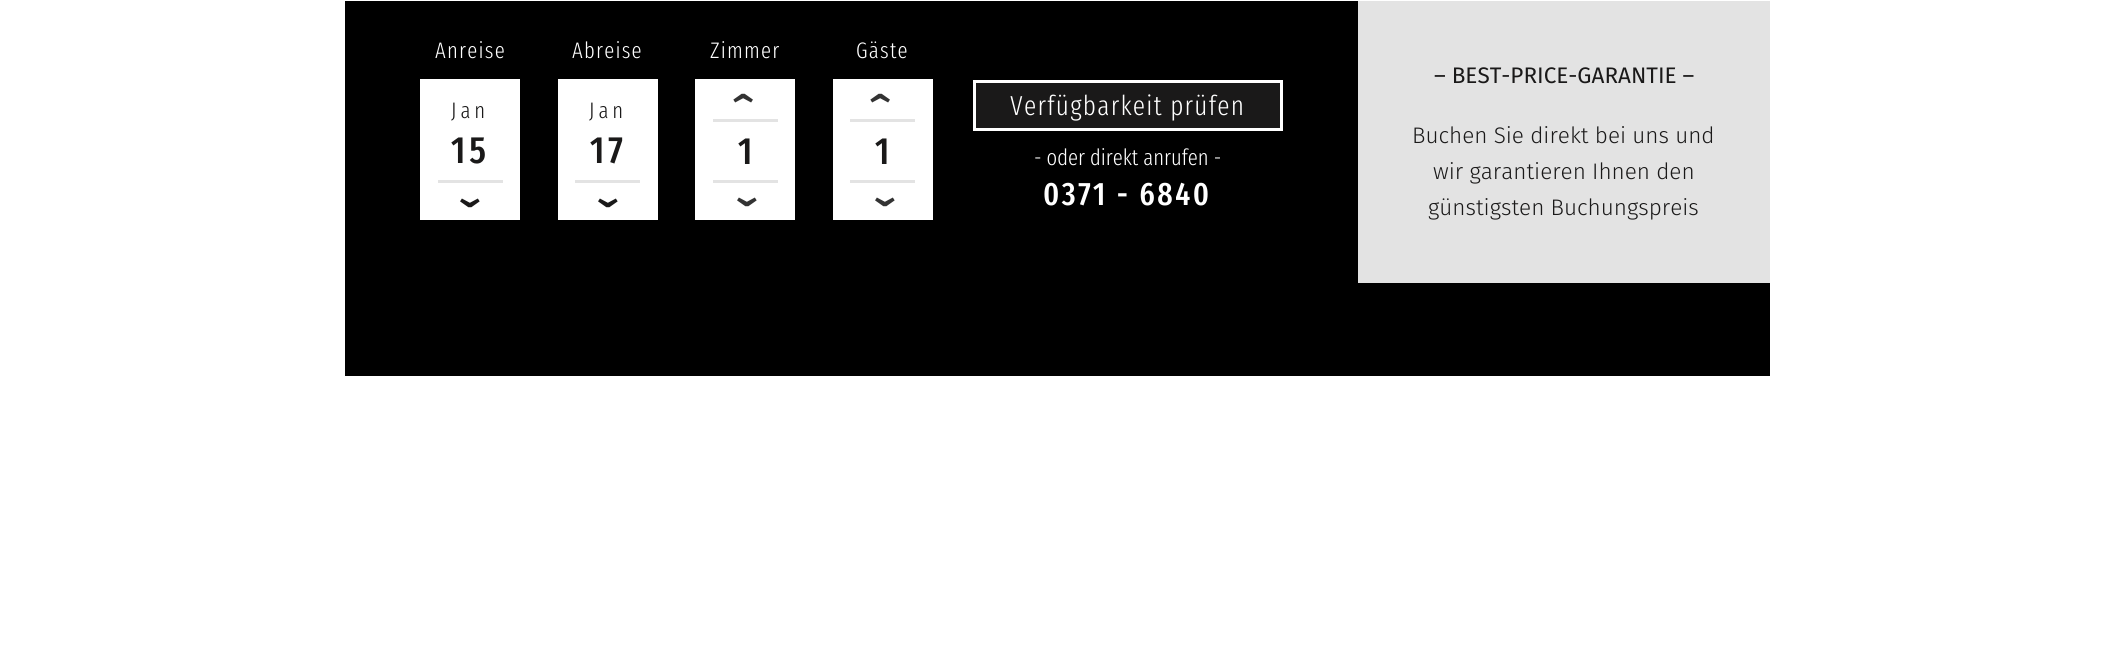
#include <cairo.h>
#include <math.h>
#include <stddef.h>


static void spaced_text(cairo_t *cr, double x, double y, const char *s, double letter, double word) {
    cairo_move_to(cr, x, y);
    while (*s) {
        char ch[5] = {0};
        int n = 0;
        do ch[n++] = *s++; while ((*s & 0xC0) == 0x80);
        cairo_show_text(cr, ch);
        cairo_rel_move_to(cr, letter + word * (*ch == ' '), 0);
    }
}

int main(void) {
    cairo_surface_t *surface = cairo_image_surface_create(CAIRO_FORMAT_RGB24, 2114, 663);
    cairo_t *cr = cairo_create(surface);
    cairo_font_options_t *options = cairo_font_options_create();
    cairo_font_options_set_hint_metrics(options, CAIRO_HINT_METRICS_OFF);
    cairo_font_options_set_hint_style(options, CAIRO_HINT_STYLE_NONE);
    cairo_set_font_options(cr, options);
    cairo_set_miter_limit(cr, 4);
    cairo_set_source_rgb(cr, 1, 1, 1);
    cairo_paint(cr);
    cairo_set_source_rgb(cr, 0, 0, 0);
    cairo_rectangle(cr, 345, 1, 1425, 375);
    cairo_fill(cr);
    cairo_select_font_face(cr, "Fira Sans Extra Condensed Light", CAIRO_FONT_SLANT_NORMAL, CAIRO_FONT_WEIGHT_NORMAL);
    cairo_set_font_size(cr, 22.5);
    cairo_set_source_rgb(cr, 1, 1, 1);
    spaced_text(cr, 435, 58, "Anreise", 1.25, 0);
    cairo_rectangle(cr, 420, 79, 100, 141);
    cairo_fill(cr);
    cairo_set_source_rgb(cr, 0.102, 0.098, 0.098);
    spaced_text(cr, 451, 118, "Jan", 4, 0);
    cairo_select_font_face(cr, "Fira Sans Extra Condensed Medium", CAIRO_FONT_SLANT_NORMAL, CAIRO_FONT_WEIGHT_NORMAL);
    cairo_set_font_size(cr, 38);
    spaced_text(cr, 451, 163, "15", 4, 0);
    cairo_set_source_rgb(cr, 0.89, 0.89, 0.89);
    cairo_rectangle(cr, 438, 180, 65, 3);
    cairo_fill(cr);
    cairo_set_source_rgb(cr, 0.102, 0.098, 0.098);
    cairo_save(cr);
    cairo_translate(cr, 459, 197);
    cairo_rotate(cr, 90 * M_PI / 180);
    spaced_text(cr, 0, 0, "›", 4, 0);
    cairo_restore(cr);
    cairo_select_font_face(cr, "Fira Sans Extra Condensed Light", CAIRO_FONT_SLANT_NORMAL, CAIRO_FONT_WEIGHT_NORMAL);
    cairo_set_font_size(cr, 22.5);
    cairo_set_source_rgb(cr, 1, 1, 1);
    spaced_text(cr, 572, 58, "Abreise", 1.25, 0);
    cairo_rectangle(cr, 558, 79, 100, 141);
    cairo_fill(cr);
    cairo_set_source_rgb(cr, 0.102, 0.098, 0.098);
    spaced_text(cr, 589, 118, "Jan", 4, 0);
    cairo_select_font_face(cr, "Fira Sans Extra Condensed Medium", CAIRO_FONT_SLANT_NORMAL, CAIRO_FONT_WEIGHT_NORMAL);
    cairo_set_font_size(cr, 38);
    spaced_text(cr, 590, 163, "17", 4, 0);
    cairo_set_source_rgb(cr, 0.89, 0.89, 0.89);
    cairo_rectangle(cr, 575, 180, 65, 3);
    cairo_fill(cr);
    cairo_set_source_rgb(cr, 0.102, 0.098, 0.098);
    cairo_save(cr);
    cairo_translate(cr, 597, 197);
    cairo_rotate(cr, 90 * M_PI / 180);
    spaced_text(cr, 0, 0, "›", 4, 0);
    cairo_restore(cr);
    cairo_select_font_face(cr, "Fira Sans Extra Condensed Light", CAIRO_FONT_SLANT_NORMAL, CAIRO_FONT_WEIGHT_NORMAL);
    cairo_set_font_size(cr, 22.5);
    cairo_set_source_rgb(cr, 1, 1, 1);
    spaced_text(cr, 710, 58, "Zimmer", 1.25, 0);
    cairo_rectangle(cr, 695, 79, 100, 141);
    cairo_fill(cr);
    cairo_select_font_face(cr, "Fira Sans Extra Condensed Medium", CAIRO_FONT_SLANT_NORMAL, CAIRO_FONT_WEIGHT_NORMAL);
    cairo_set_font_size(cr, 38);
    cairo_set_source_rgb(cr, 0.2, 0.2, 0.2);
    cairo_save(cr);
    cairo_translate(cr, 754, 104);
    cairo_rotate(cr, -90 * M_PI / 180);
    cairo_move_to(cr, 0, 0);
    cairo_show_text(cr, "›");
    cairo_restore(cr);
    cairo_set_source_rgb(cr, 0.89, 0.89, 0.89);
    cairo_rectangle(cr, 713, 119, 65, 3);
    cairo_fill(cr);
    cairo_set_source_rgb(cr, 0.102, 0.098, 0.098);
    cairo_move_to(cr, 738, 164);
    cairo_show_text(cr, "1");
    cairo_set_source_rgb(cr, 0.89, 0.89, 0.89);
    cairo_rectangle(cr, 713, 180, 65, 3);
    cairo_fill(cr);
    cairo_set_source_rgb(cr, 0.2, 0.2, 0.2);
    cairo_save(cr);
    cairo_translate(cr, 736, 196);
    cairo_rotate(cr, 90 * M_PI / 180);
    cairo_move_to(cr, 0, 0);
    cairo_show_text(cr, "›");
    cairo_restore(cr);
    cairo_select_font_face(cr, "Fira Sans Extra Condensed Light", CAIRO_FONT_SLANT_NORMAL, CAIRO_FONT_WEIGHT_NORMAL);
    cairo_set_font_size(cr, 22.5);
    cairo_set_source_rgb(cr, 1, 1, 1);
    spaced_text(cr, 856, 58, "Gäste", 1.25, 0);
    cairo_rectangle(cr, 833, 79, 100, 141);
    cairo_fill(cr);
    cairo_select_font_face(cr, "Fira Sans Extra Condensed Medium", CAIRO_FONT_SLANT_NORMAL, CAIRO_FONT_WEIGHT_NORMAL);
    cairo_set_font_size(cr, 38);
    cairo_set_source_rgb(cr, 0.2, 0.2, 0.2);
    cairo_save(cr);
    cairo_translate(cr, 891, 104);
    cairo_rotate(cr, -90 * M_PI / 180);
    cairo_move_to(cr, 0, 0);
    cairo_show_text(cr, "›");
    cairo_restore(cr);
    cairo_set_source_rgb(cr, 0.89, 0.89, 0.89);
    cairo_rectangle(cr, 850, 119, 65, 3);
    cairo_fill(cr);
    cairo_set_source_rgb(cr, 0.102, 0.098, 0.098);
    cairo_move_to(cr, 875, 164);
    cairo_show_text(cr, "1");
    cairo_set_source_rgb(cr, 0.89, 0.89, 0.89);
    cairo_rectangle(cr, 850, 180, 65, 3);
    cairo_fill(cr);
    cairo_set_source_rgb(cr, 0.2, 0.2, 0.2);
    cairo_save(cr);
    cairo_translate(cr, 874, 196);
    cairo_rotate(cr, 90 * M_PI / 180);
    cairo_move_to(cr, 0, 0);
    cairo_show_text(cr, "›");
    cairo_restore(cr);
    cairo_set_source_rgb(cr, 0.102, 0.098, 0.098);
    cairo_rectangle(cr, 974.5, 81.5, 307, 48);
    cairo_fill_preserve(cr);
    cairo_set_source_rgb(cr, 1, 1, 1);
    cairo_set_line_width(cr, 3);
    cairo_stroke(cr);
    cairo_select_font_face(cr, "Fira Sans Extra Condensed Light", CAIRO_FONT_SLANT_NORMAL, CAIRO_FONT_WEIGHT_NORMAL);
    cairo_set_font_size(cr, 27.5);
    spaced_text(cr, 1010, 115, "Verfügbarkeit prüfen", 1.25, 0);
    cairo_set_font_size(cr, 22.5);
    cairo_move_to(cr, 1034, 165);
    cairo_show_text(cr, "- oder direkt anrufen -");
    cairo_select_font_face(cr, "Fira Sans Extra Condensed Medium", CAIRO_FONT_SLANT_NORMAL, CAIRO_FONT_WEIGHT_NORMAL);
    cairo_set_font_size(cr, 32.5);
    spaced_text(cr, 1043, 205, "0371 - 6840", 2.5, 0);
    cairo_set_source_rgb(cr, 0.89, 0.89, 0.89);
    cairo_rectangle(cr, 1358, 1, 412, 282);
    cairo_fill(cr);
    cairo_select_font_face(cr, "Fira Sans", CAIRO_FONT_SLANT_NORMAL, CAIRO_FONT_WEIGHT_NORMAL);
    cairo_set_font_size(cr, 22.5);
    cairo_set_source_rgb(cr, 0.102, 0.098, 0.098);
    cairo_move_to(cr, 1434, 83);
    cairo_show_text(cr, "– BEST-PRICE-GARANTIE –");
    cairo_select_font_face(cr, "Fira Sans Light", CAIRO_FONT_SLANT_NORMAL, CAIRO_FONT_WEIGHT_NORMAL);
    cairo_move_to(cr, 1412, 143);
    cairo_show_text(cr, "Buchen Sie direkt bei uns und");
    cairo_move_to(cr, 1433, 179);
    cairo_show_text(cr, "wir garantieren Ihnen den");
    cairo_move_to(cr, 1428, 215);
    cairo_show_text(cr, "günstigsten Buchungspreis");
    cairo_surface_write_to_png(surface, "page.png");
    cairo_font_options_destroy(options);
    cairo_destroy(cr);
    cairo_surface_destroy(surface);
    return 0;
}
